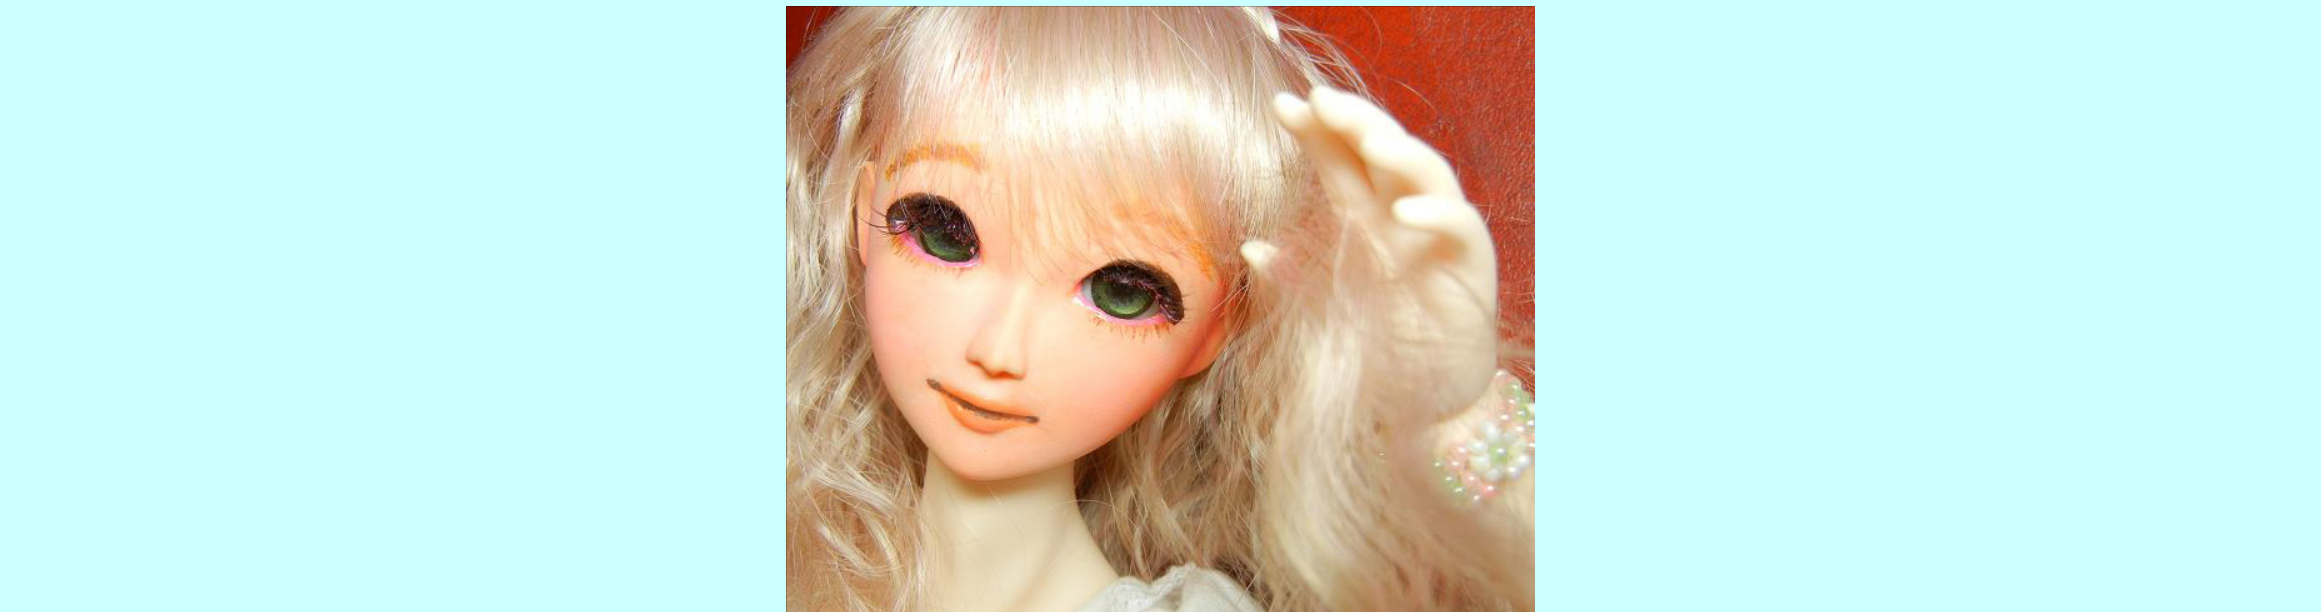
#include <cairo.h>
#include <math.h>
#include <stddef.h>


static void picture(cairo_t *cr, const char *path, double x, double y, double w, double h) {
    cairo_surface_t *image = cairo_image_surface_create_from_png(path);
    cairo_save(cr);
    cairo_set_source_surface(cr, image, x, y);
    cairo_rectangle(cr, x, y, w, h);
    cairo_fill(cr);
    cairo_restore(cr);
    cairo_surface_destroy(image);
}

int main(void) {
    cairo_surface_t *surface = cairo_image_surface_create(CAIRO_FORMAT_RGB24, 2321, 612);
    cairo_t *cr = cairo_create(surface);
    cairo_font_options_t *options = cairo_font_options_create();
    cairo_font_options_set_hint_metrics(options, CAIRO_HINT_METRICS_OFF);
    cairo_font_options_set_hint_style(options, CAIRO_HINT_STYLE_NONE);
    cairo_set_font_options(cr, options);
    cairo_set_miter_limit(cr, 4);
    cairo_set_source_rgb(cr, 0.8, 1, 1);
    cairo_paint(cr);
    cairo_set_source_rgb(cr, 0, 0, 0);
    cairo_rectangle(cr, 786, 6, 749, 606);
    cairo_fill(cr);
    picture(cr, "img1.png", 786, 6, 749, 606);
    cairo_surface_write_to_png(surface, "page.png");
    cairo_font_options_destroy(options);
    cairo_destroy(cr);
    cairo_surface_destroy(surface);
    return 0;
}
